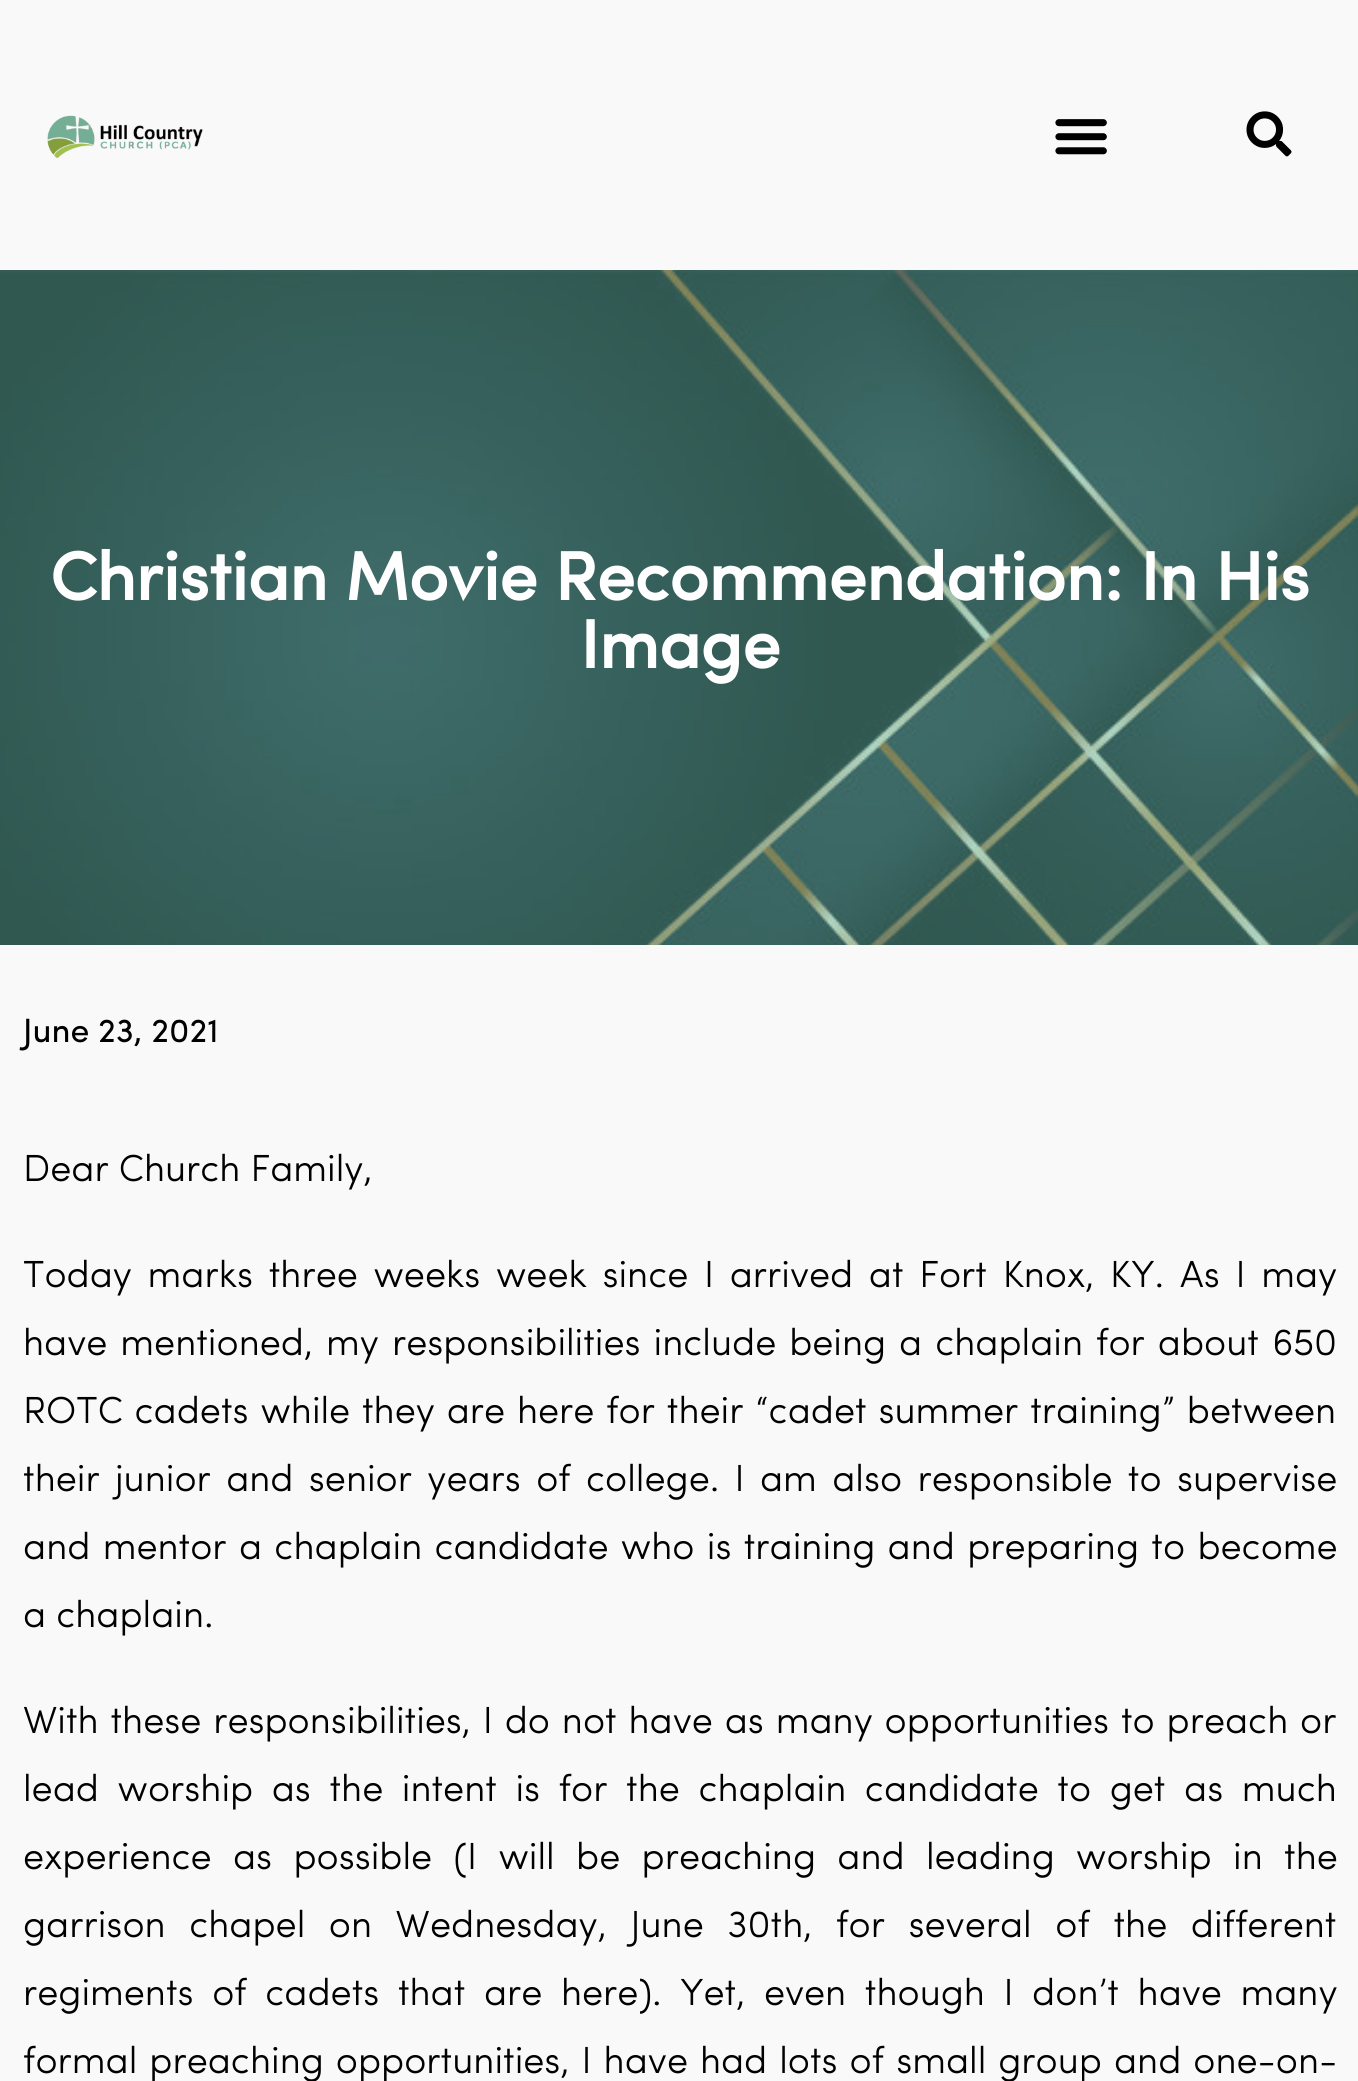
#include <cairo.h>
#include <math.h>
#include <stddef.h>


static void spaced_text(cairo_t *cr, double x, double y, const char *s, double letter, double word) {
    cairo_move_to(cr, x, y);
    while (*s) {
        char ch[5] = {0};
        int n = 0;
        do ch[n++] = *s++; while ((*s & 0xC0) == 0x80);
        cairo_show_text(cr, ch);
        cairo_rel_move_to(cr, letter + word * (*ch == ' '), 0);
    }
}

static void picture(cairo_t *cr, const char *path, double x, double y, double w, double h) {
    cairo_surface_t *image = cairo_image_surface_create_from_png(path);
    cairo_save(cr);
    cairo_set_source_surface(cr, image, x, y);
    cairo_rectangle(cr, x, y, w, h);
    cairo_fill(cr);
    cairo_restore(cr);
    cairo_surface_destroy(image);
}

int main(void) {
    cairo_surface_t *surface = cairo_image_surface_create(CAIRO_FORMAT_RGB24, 1358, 2081);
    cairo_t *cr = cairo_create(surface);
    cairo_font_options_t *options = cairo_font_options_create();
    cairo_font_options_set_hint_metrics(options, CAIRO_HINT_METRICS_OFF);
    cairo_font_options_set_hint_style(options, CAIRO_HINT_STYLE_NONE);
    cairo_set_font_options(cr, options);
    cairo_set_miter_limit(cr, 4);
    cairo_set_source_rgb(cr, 0.976, 0.976, 0.976);
    cairo_paint(cr);
    picture(cr, "img1.png", 47, 115, 156, 44);
    picture(cr, "img2.png", 1055, 119, 52, 36);
    picture(cr, "img3.png", 1246, 111, 46, 46);
    picture(cr, "img4.png", 0, 270, 1358, 675);
    cairo_select_font_face(cr, "Sofia", CAIRO_FONT_SLANT_NORMAL, CAIRO_FONT_WEIGHT_BOLD);
    cairo_set_font_size(cr, 68);
    cairo_set_source_rgb(cr, 1, 1, 1);
    cairo_move_to(cr, 50, 600);
    cairo_show_text(cr, "Christian Movie Recommendation: In His");
    cairo_move_to(cr, 580, 668);
    cairo_show_text(cr, "Image");
    cairo_select_font_face(cr, "Sofia", CAIRO_FONT_SLANT_NORMAL, CAIRO_FONT_WEIGHT_NORMAL);
    cairo_set_font_size(cr, 33.75);
    cairo_set_source_rgb(cr, 0, 0, 0);
    cairo_move_to(cr, 23, 1042);
    cairo_show_text(cr, "June 23, 2021");
    cairo_select_font_face(cr, "Sofia Light", CAIRO_FONT_SLANT_NORMAL, CAIRO_FONT_WEIGHT_NORMAL);
    cairo_set_font_size(cr, 37.8);
    cairo_move_to(cr, 23, 1181);
    cairo_show_text(cr, "Dear Church Family,");
    spaced_text(cr, 23, 1287, "Today marks three weeks week since I arrived at Fort Knox, KY. As I may", 0, 5.6);
    spaced_text(cr, 23, 1355, "have mentioned, my responsibilities include being a chaplain for about 650", 0, 2.9);
    spaced_text(cr, 23, 1423, "ROTC cadets while they are here for their “cadet summer training” between", 0, 1.75);
    spaced_text(cr, 23, 1491, "their junior and senior years of college. I am also responsible to supervise", 0, 5.25);
    spaced_text(cr, 23, 1559, "and mentor a chaplain candidate who is training and preparing to become", 0, 2.25);
    cairo_move_to(cr, 23, 1627);
    cairo_show_text(cr, "a chaplain.");
    spaced_text(cr, 23, 1733, "With these responsibilities, I do not have as many opportunities to preach or", 0, 1.75);
    spaced_text(cr, 23, 1801, "lead worship as the intent is for the chaplain candidate to get as much", 0, 8.5);
    spaced_text(cr, 23, 1869, "experience as possible (I will be preaching and leading worship in the", 0, 11.25);
    spaced_text(cr, 23, 1937, "garrison chapel on Wednesday, June 30th, for several of the different", 0, 13.5);
    spaced_text(cr, 23, 2005, "regiments of cadets that are here). Yet, even though I don’t have many", 0, 8.5);
    spaced_text(cr, 23, 2073, "formal preaching opportunities, I have had lots of small group and one-on-", 0, 1.9);
    cairo_surface_write_to_png(surface, "page.png");
    cairo_font_options_destroy(options);
    cairo_destroy(cr);
    cairo_surface_destroy(surface);
    return 0;
}
